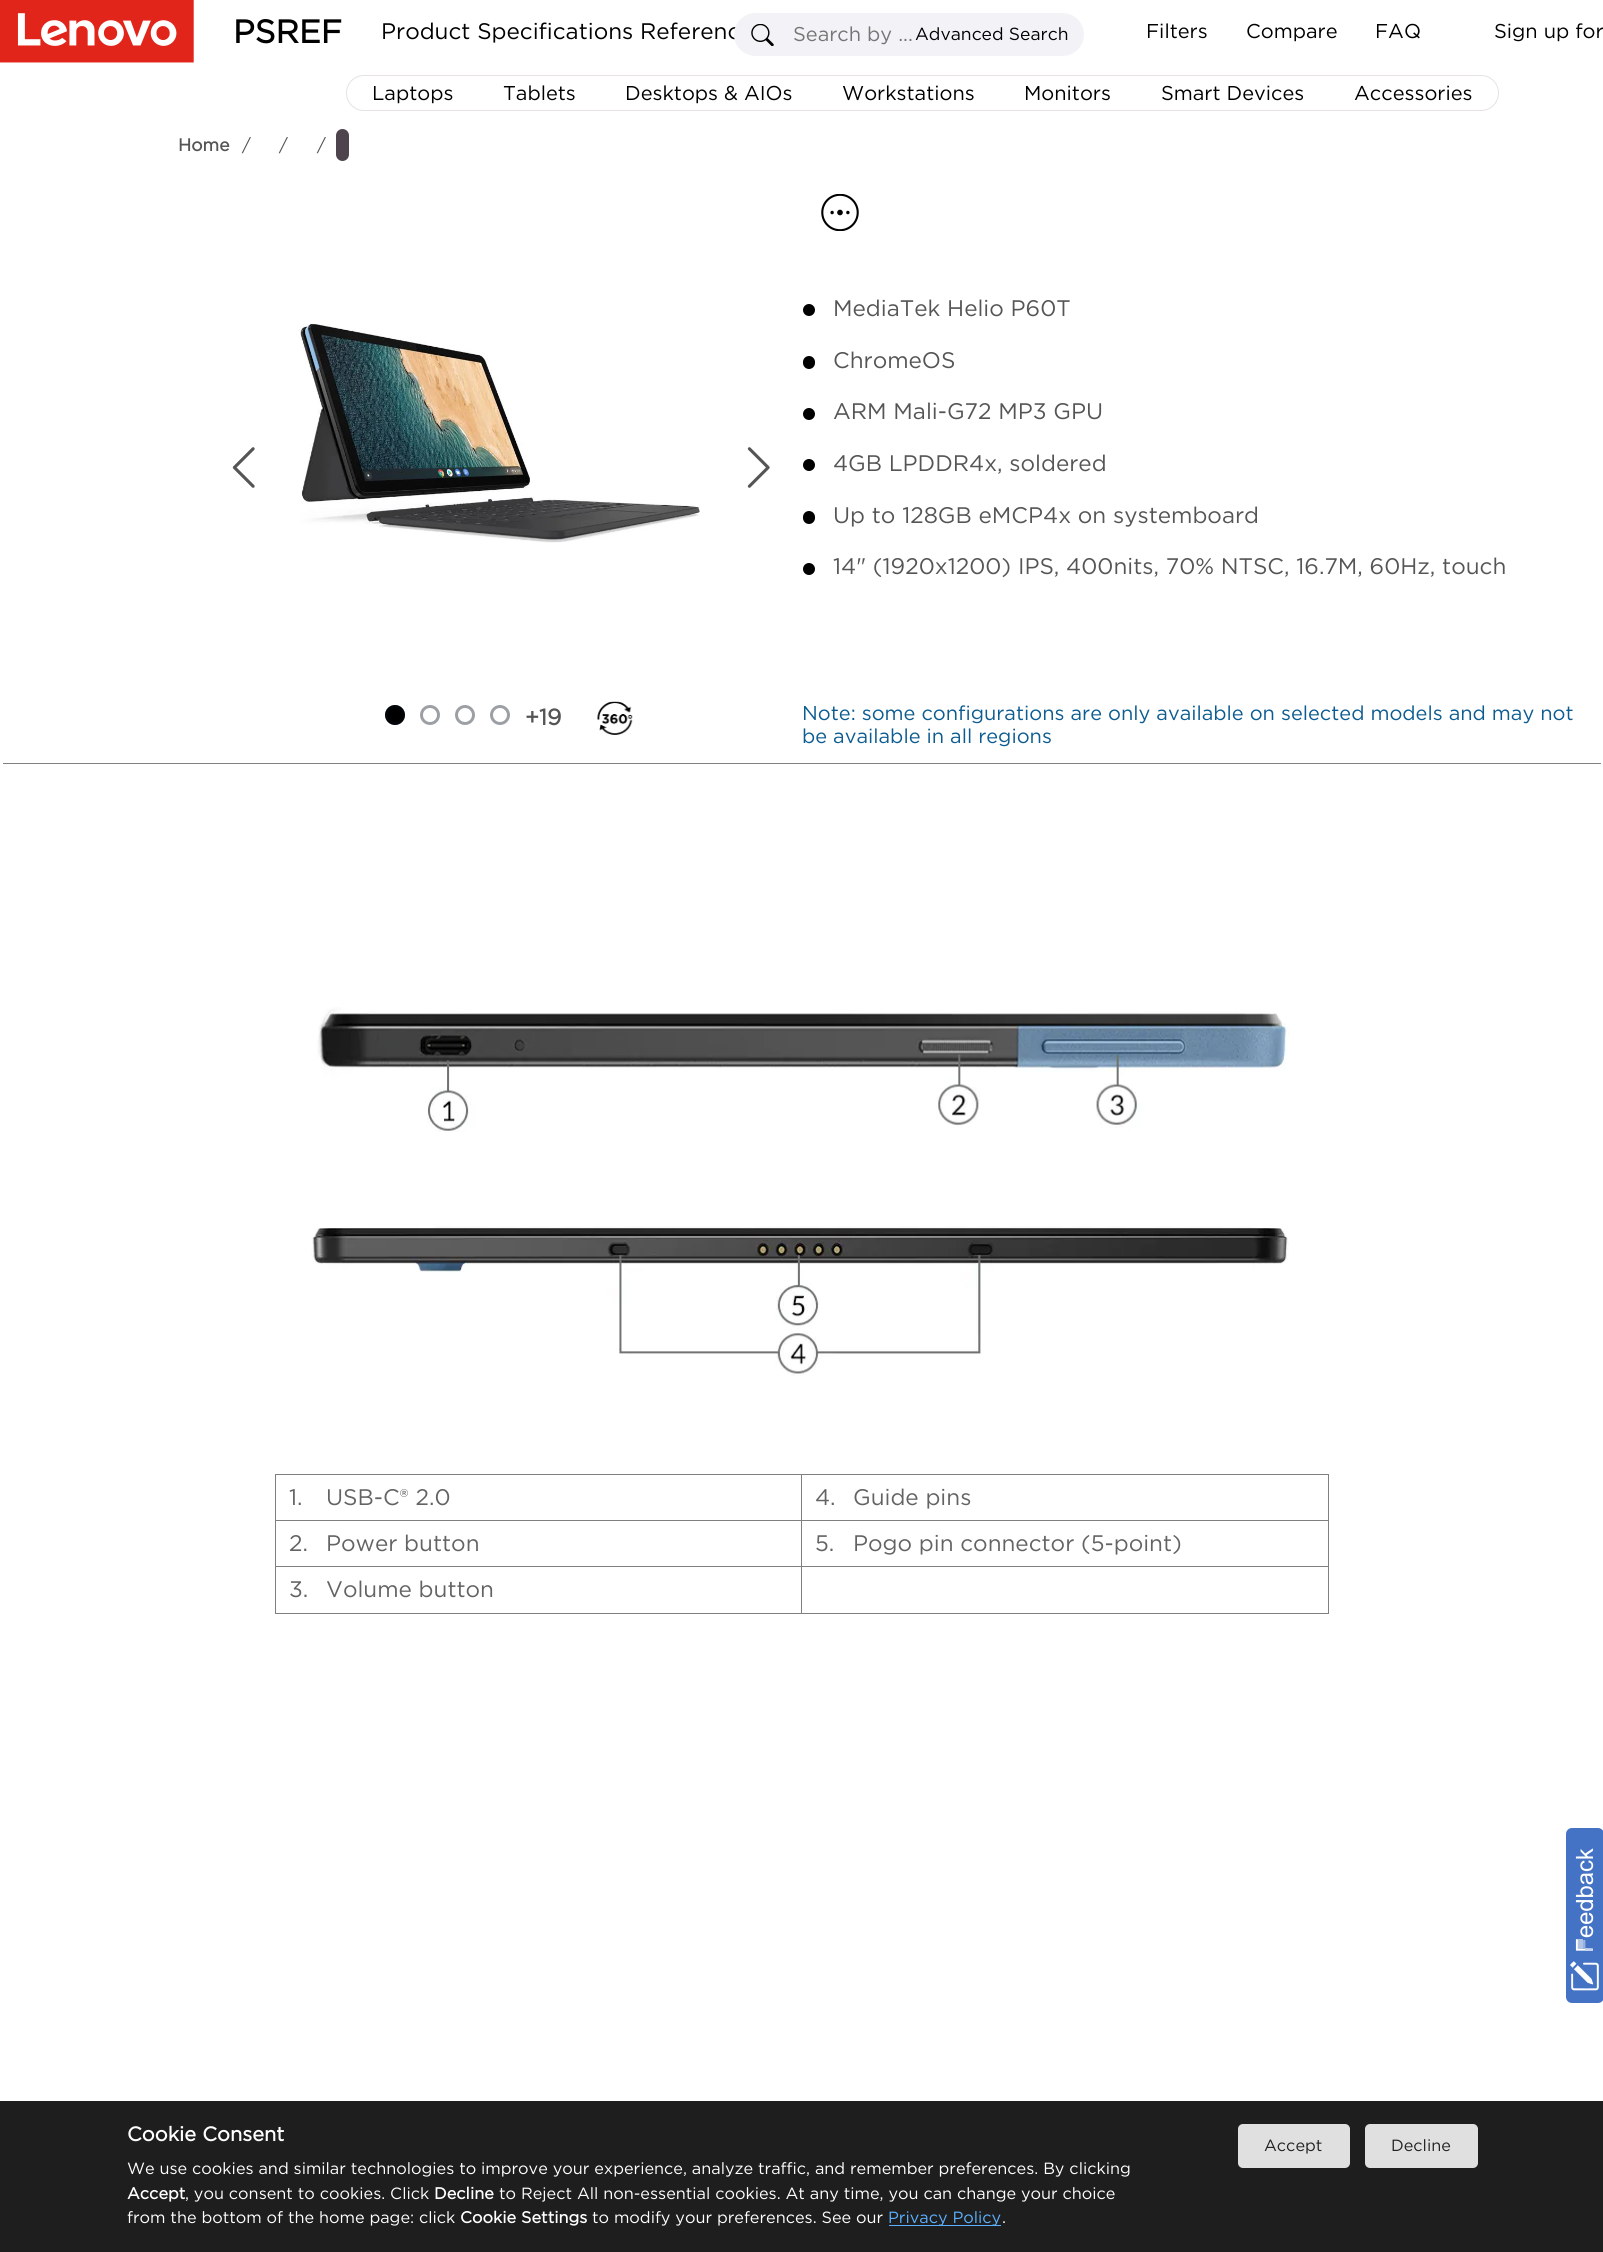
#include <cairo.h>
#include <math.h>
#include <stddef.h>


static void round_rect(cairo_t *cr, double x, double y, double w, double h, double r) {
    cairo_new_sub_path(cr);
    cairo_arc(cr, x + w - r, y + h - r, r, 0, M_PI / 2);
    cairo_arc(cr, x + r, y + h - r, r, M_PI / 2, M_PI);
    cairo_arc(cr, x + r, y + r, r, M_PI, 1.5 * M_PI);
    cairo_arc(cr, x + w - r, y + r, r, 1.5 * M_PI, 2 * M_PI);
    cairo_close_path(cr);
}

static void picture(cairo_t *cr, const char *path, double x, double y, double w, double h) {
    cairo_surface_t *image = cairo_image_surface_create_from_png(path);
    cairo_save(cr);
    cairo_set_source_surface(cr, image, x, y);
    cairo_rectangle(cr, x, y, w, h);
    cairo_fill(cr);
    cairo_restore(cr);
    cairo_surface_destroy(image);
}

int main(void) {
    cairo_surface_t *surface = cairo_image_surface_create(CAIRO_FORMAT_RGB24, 1603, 2252);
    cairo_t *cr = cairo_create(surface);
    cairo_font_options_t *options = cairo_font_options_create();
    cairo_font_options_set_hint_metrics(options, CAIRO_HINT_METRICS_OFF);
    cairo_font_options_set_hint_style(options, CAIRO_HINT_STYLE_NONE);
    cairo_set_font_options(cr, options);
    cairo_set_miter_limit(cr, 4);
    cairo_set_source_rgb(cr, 1, 1, 1);
    cairo_paint(cr);
    picture(cr, "img1.png", 0, 0, 194, 63);
    cairo_select_font_face(cr, "Gotham", CAIRO_FONT_SLANT_NORMAL, CAIRO_FONT_WEIGHT_BOLD);
    cairo_set_font_size(cr, 32.5);
    cairo_set_source_rgb(cr, 0, 0, 0);
    cairo_move_to(cr, 233, 43);
    cairo_show_text(cr, "PSREF");
    cairo_select_font_face(cr, "Gotham", CAIRO_FONT_SLANT_NORMAL, CAIRO_FONT_WEIGHT_NORMAL);
    cairo_set_font_size(cr, 22.5);
    cairo_move_to(cr, 381, 39);
    cairo_show_text(cr, "Product Specifications Referenc");
    cairo_set_source_rgb(cr, 0.953, 0.953, 0.965);
    round_rect(cr, 734, 13, 350, 43, 21.5);
    cairo_fill(cr);
    picture(cr, "img2.png", 751, 24, 23, 22);
    cairo_set_font_size(cr, 20);
    cairo_set_source_rgb(cr, 0.459, 0.459, 0.459);
    cairo_move_to(cr, 793, 41);
    cairo_show_text(cr, "Search by ...");
    cairo_set_font_size(cr, 17.5);
    cairo_set_source_rgb(cr, 0, 0, 0);
    cairo_move_to(cr, 915, 40);
    cairo_show_text(cr, "Advanced Search");
    cairo_set_font_size(cr, 20);
    cairo_move_to(cr, 1146, 38);
    cairo_show_text(cr, "Filters");
    cairo_move_to(cr, 1246, 38);
    cairo_show_text(cr, "Compare");
    cairo_move_to(cr, 1375, 38);
    cairo_show_text(cr, "FAQ");
    cairo_move_to(cr, 1494, 38);
    cairo_show_text(cr, "Sign up for");
    round_rect(cr, 346.5, 75.5, 1152, 35, 17.5);
    cairo_set_source_rgb(cr, 0.902, 0.886, 0.894);
    cairo_set_line_width(cr, 1);
    cairo_stroke(cr);
    cairo_set_source_rgb(cr, 0, 0, 0);
    cairo_move_to(cr, 372, 100);
    cairo_show_text(cr, "Laptops");
    cairo_move_to(cr, 503, 100);
    cairo_show_text(cr, "Tablets");
    cairo_move_to(cr, 625, 100);
    cairo_show_text(cr, "Desktops & AIOs");
    cairo_move_to(cr, 842, 100);
    cairo_show_text(cr, "Workstations");
    cairo_move_to(cr, 1024, 100);
    cairo_show_text(cr, "Monitors");
    cairo_move_to(cr, 1161, 100);
    cairo_show_text(cr, "Smart Devices");
    cairo_move_to(cr, 1354, 100);
    cairo_show_text(cr, "Accessories");
    cairo_select_font_face(cr, "Gotham", CAIRO_FONT_SLANT_NORMAL, CAIRO_FONT_WEIGHT_BOLD);
    cairo_set_font_size(cr, 17.5);
    cairo_set_source_rgb(cr, 0.333, 0.333, 0.333);
    cairo_move_to(cr, 178, 151);
    cairo_show_text(cr, "Home");
    cairo_select_font_face(cr, "Gotham", CAIRO_FONT_SLANT_NORMAL, CAIRO_FONT_WEIGHT_NORMAL);
    cairo_move_to(cr, 242, 151);
    cairo_show_text(cr, "/");
    cairo_move_to(cr, 279, 151);
    cairo_show_text(cr, "/");
    cairo_move_to(cr, 317, 151);
    cairo_show_text(cr, "/");
    cairo_set_source_rgb(cr, 0.306, 0.267, 0.306);
    round_rect(cr, 336, 129, 13, 32, 6.5);
    cairo_fill(cr);
    picture(cr, "img3.png", 821, 194, 38, 37);
    cairo_set_source_rgb(cr, 0, 0, 0);
    cairo_arc(cr, 809, 310, 6, 0, 2 * M_PI);
    cairo_fill(cr);
    cairo_set_font_size(cr, 22.5);
    cairo_set_source_rgb(cr, 0.333, 0.333, 0.333);
    cairo_move_to(cr, 833, 316);
    cairo_show_text(cr, "MediaTek Helio P60T");
    cairo_set_source_rgb(cr, 0, 0, 0);
    round_rect(cr, 803, 356, 12, 13, 6);
    cairo_fill(cr);
    cairo_set_source_rgb(cr, 0.333, 0.333, 0.333);
    cairo_move_to(cr, 833, 368);
    cairo_show_text(cr, "ChromeOS");
    cairo_set_source_rgb(cr, 0, 0, 0);
    cairo_new_path(cr);
    cairo_arc(cr, 809, 414, 6, 0, 2 * M_PI);
    cairo_fill(cr);
    cairo_set_source_rgb(cr, 0.333, 0.333, 0.333);
    cairo_move_to(cr, 833, 419);
    cairo_show_text(cr, "ARM Mali-G72 MP3 GPU");
    cairo_set_source_rgb(cr, 0, 0, 0);
    cairo_new_path(cr);
    cairo_arc(cr, 809, 465, 6, 0, 2 * M_PI);
    cairo_fill(cr);
    cairo_set_source_rgb(cr, 0.333, 0.333, 0.333);
    cairo_move_to(cr, 833, 471);
    cairo_show_text(cr, "4GB LPDDR4x, soldered");
    cairo_set_source_rgb(cr, 0, 0, 0);
    round_rect(cr, 803, 511, 12, 13, 6);
    cairo_fill(cr);
    cairo_set_source_rgb(cr, 0.333, 0.333, 0.333);
    cairo_move_to(cr, 833, 523);
    cairo_show_text(cr, "Up to 128GB eMCP4x on systemboard");
    cairo_set_source_rgb(cr, 0, 0, 0);
    cairo_new_path(cr);
    cairo_arc(cr, 809, 569, 6, 0, 2 * M_PI);
    cairo_fill(cr);
    cairo_set_source_rgb(cr, 0.333, 0.333, 0.333);
    cairo_move_to(cr, 833, 574);
    cairo_show_text(cr, "14\" (1920x1200) IPS, 400nits, 70% NTSC, 16.7M, 60Hz, touch");
    cairo_set_font_size(cr, 20);
    cairo_set_source_rgb(cr, 0.051, 0.361, 0.569);
    cairo_move_to(cr, 802, 720);
    cairo_show_text(cr, "Note: some configurations are only available on selected models and may not");
    cairo_move_to(cr, 802, 743);
    cairo_show_text(cr, "be available in all regions");
    picture(cr, "img4.png", 232, 447, 23, 41);
    picture(cr, "img5.png", 300, 323, 400, 220);
    picture(cr, "img6.png", 747, 447, 23, 41);
    cairo_set_source_rgb(cr, 0, 0, 0);
    cairo_arc(cr, 395, 715, 10, 0, 2 * M_PI);
    cairo_fill(cr);
    cairo_arc(cr, 395, 715, 8.5, 0, 2 * M_PI);
    cairo_set_source_rgba(cr, 0.027, 0.067, 0.106, 0.4);
    cairo_set_line_width(cr, 3);
    cairo_stroke(cr);
    cairo_arc(cr, 430, 715, 8.5, 0, 2 * M_PI);
    cairo_set_source_rgb(cr, 0.612, 0.627, 0.643);
    cairo_stroke(cr);
    cairo_arc(cr, 465, 715, 8.5, 0, 2 * M_PI);
    cairo_stroke(cr);
    cairo_arc(cr, 500, 715, 8.5, 0, 2 * M_PI);
    cairo_stroke(cr);
    cairo_select_font_face(cr, "Gotham", CAIRO_FONT_SLANT_NORMAL, CAIRO_FONT_WEIGHT_BOLD);
    cairo_set_font_size(cr, 22.5);
    cairo_set_source_rgb(cr, 0.333, 0.333, 0.333);
    cairo_move_to(cr, 525, 725);
    cairo_show_text(cr, "+19");
    picture(cr, "img7.png", 597, 701, 36, 34);
    cairo_set_source_rgb(cr, 0.502, 0.502, 0.502);
    cairo_rectangle(cr, 3, 763, 1598, 1);
    cairo_fill(cr);
    picture(cr, "img8.png", 311, 1007, 978, 369);
    cairo_rectangle(cr, 275, 1474, 1054, 1);
    cairo_fill(cr);
    cairo_rectangle(cr, 1328, 1474, 1, 140);
    cairo_fill(cr);
    cairo_rectangle(cr, 275, 1613, 1054, 1);
    cairo_fill(cr);
    cairo_rectangle(cr, 275, 1474, 1, 140);
    cairo_fill(cr);
    cairo_select_font_face(cr, "Gotham", CAIRO_FONT_SLANT_NORMAL, CAIRO_FONT_WEIGHT_NORMAL);
    cairo_set_source_rgb(cr, 0.392, 0.388, 0.388);
    cairo_move_to(cr, 289, 1505);
    cairo_show_text(cr, "1.");
    cairo_move_to(cr, 326, 1505);
    cairo_show_text(cr, "USB-C® 2.0");
    cairo_set_source_rgb(cr, 0.502, 0.502, 0.502);
    cairo_rectangle(cr, 801, 1520, 528, 1);
    cairo_fill(cr);
    cairo_rectangle(cr, 801, 1566, 528, 1);
    cairo_fill(cr);
    cairo_rectangle(cr, 801, 1566, 1, 48);
    cairo_fill(cr);
    cairo_rectangle(cr, 275, 1566, 528, 1);
    cairo_fill(cr);
    cairo_rectangle(cr, 801, 1520, 1, 48);
    cairo_fill(cr);
    cairo_rectangle(cr, 275, 1520, 528, 1);
    cairo_fill(cr);
    cairo_rectangle(cr, 801, 1474, 1, 47);
    cairo_fill(cr);
    cairo_set_source_rgb(cr, 0.392, 0.388, 0.388);
    cairo_move_to(cr, 815, 1505);
    cairo_show_text(cr, "4.");
    cairo_move_to(cr, 853, 1505);
    cairo_show_text(cr, "Guide pins");
    cairo_move_to(cr, 289, 1551);
    cairo_show_text(cr, "2.");
    cairo_move_to(cr, 326, 1551);
    cairo_show_text(cr, "Power button");
    cairo_move_to(cr, 815, 1551);
    cairo_show_text(cr, "5.");
    cairo_move_to(cr, 853, 1551);
    cairo_show_text(cr, "Pogo pin connector (5-point)");
    cairo_move_to(cr, 289, 1597);
    cairo_show_text(cr, "3.");
    cairo_move_to(cr, 326, 1597);
    cairo_show_text(cr, "Volume button");
    cairo_set_source_rgb(cr, 0.267, 0.447, 0.769);
    round_rect(cr, 1566, 1828, 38, 175, 6);
    cairo_fill(cr);
    picture(cr, "img9.png", 1570, 1848, 29, 143);
    cairo_set_source_rgb(cr, 0.118, 0.118, 0.118);
    cairo_rectangle(cr, 0, 2101, 1603, 151);
    cairo_fill(cr);
    cairo_select_font_face(cr, "Gotham", CAIRO_FONT_SLANT_NORMAL, CAIRO_FONT_WEIGHT_BOLD);
    cairo_set_font_size(cr, 20);
    cairo_set_source_rgb(cr, 1, 1, 1);
    cairo_move_to(cr, 127, 2141);
    cairo_show_text(cr, "Cookie Consent");
    cairo_select_font_face(cr, "Gotham", CAIRO_FONT_SLANT_NORMAL, CAIRO_FONT_WEIGHT_NORMAL);
    cairo_set_font_size(cr, 16.25);
    cairo_move_to(cr, 127, 2174);
    cairo_show_text(cr, "We use cookies and similar technologies to improve your experience, analyze traffic, and remember preferences. By clicking");
    cairo_select_font_face(cr, "Gotham", CAIRO_FONT_SLANT_NORMAL, CAIRO_FONT_WEIGHT_BOLD);
    cairo_move_to(cr, 127, 2199);
    cairo_show_text(cr, "Accept");
    cairo_select_font_face(cr, "Gotham", CAIRO_FONT_SLANT_NORMAL, CAIRO_FONT_WEIGHT_NORMAL);
    cairo_move_to(cr, 185, 2199);
    cairo_show_text(cr, ", you consent to cookies. Click");
    cairo_select_font_face(cr, "Gotham", CAIRO_FONT_SLANT_NORMAL, CAIRO_FONT_WEIGHT_BOLD);
    cairo_move_to(cr, 434, 2199);
    cairo_show_text(cr, "Decline");
    cairo_select_font_face(cr, "Gotham", CAIRO_FONT_SLANT_NORMAL, CAIRO_FONT_WEIGHT_NORMAL);
    cairo_move_to(cr, 499, 2199);
    cairo_show_text(cr, "to Reject All non-essential cookies. At any time, you can change your choice");
    cairo_move_to(cr, 127, 2223);
    cairo_show_text(cr, "from the bottom of the home page: click");
    cairo_select_font_face(cr, "Gotham", CAIRO_FONT_SLANT_NORMAL, CAIRO_FONT_WEIGHT_BOLD);
    cairo_move_to(cr, 460, 2223);
    cairo_show_text(cr, "Cookie Settings");
    cairo_select_font_face(cr, "Gotham", CAIRO_FONT_SLANT_NORMAL, CAIRO_FONT_WEIGHT_NORMAL);
    cairo_move_to(cr, 592, 2223);
    cairo_show_text(cr, "to modify your preferences. See our");
    cairo_set_source_rgb(cr, 0.361, 0.69, 1);
    cairo_rectangle(cr, 889, 2225, 112, 1);
    cairo_fill(cr);
    cairo_move_to(cr, 888, 2223);
    cairo_show_text(cr, "Privacy Policy");
    cairo_set_source_rgb(cr, 1, 1, 1);
    cairo_move_to(cr, 1002, 2223);
    cairo_show_text(cr, ".");
    cairo_set_source_rgb(cr, 0.878, 0.878, 0.878);
    round_rect(cr, 1238, 2124, 112, 44, 5);
    cairo_fill(cr);
    cairo_set_source_rgb(cr, 0.133, 0.133, 0.133);
    cairo_move_to(cr, 1264, 2151);
    cairo_show_text(cr, "Accept");
    cairo_set_source_rgb(cr, 0.878, 0.878, 0.878);
    round_rect(cr, 1365, 2124, 113, 44, 5);
    cairo_fill(cr);
    cairo_set_source_rgb(cr, 0.133, 0.133, 0.133);
    cairo_move_to(cr, 1391, 2151);
    cairo_show_text(cr, "Decline");
    cairo_surface_write_to_png(surface, "page.png");
    cairo_font_options_destroy(options);
    cairo_destroy(cr);
    cairo_surface_destroy(surface);
    return 0;
}
